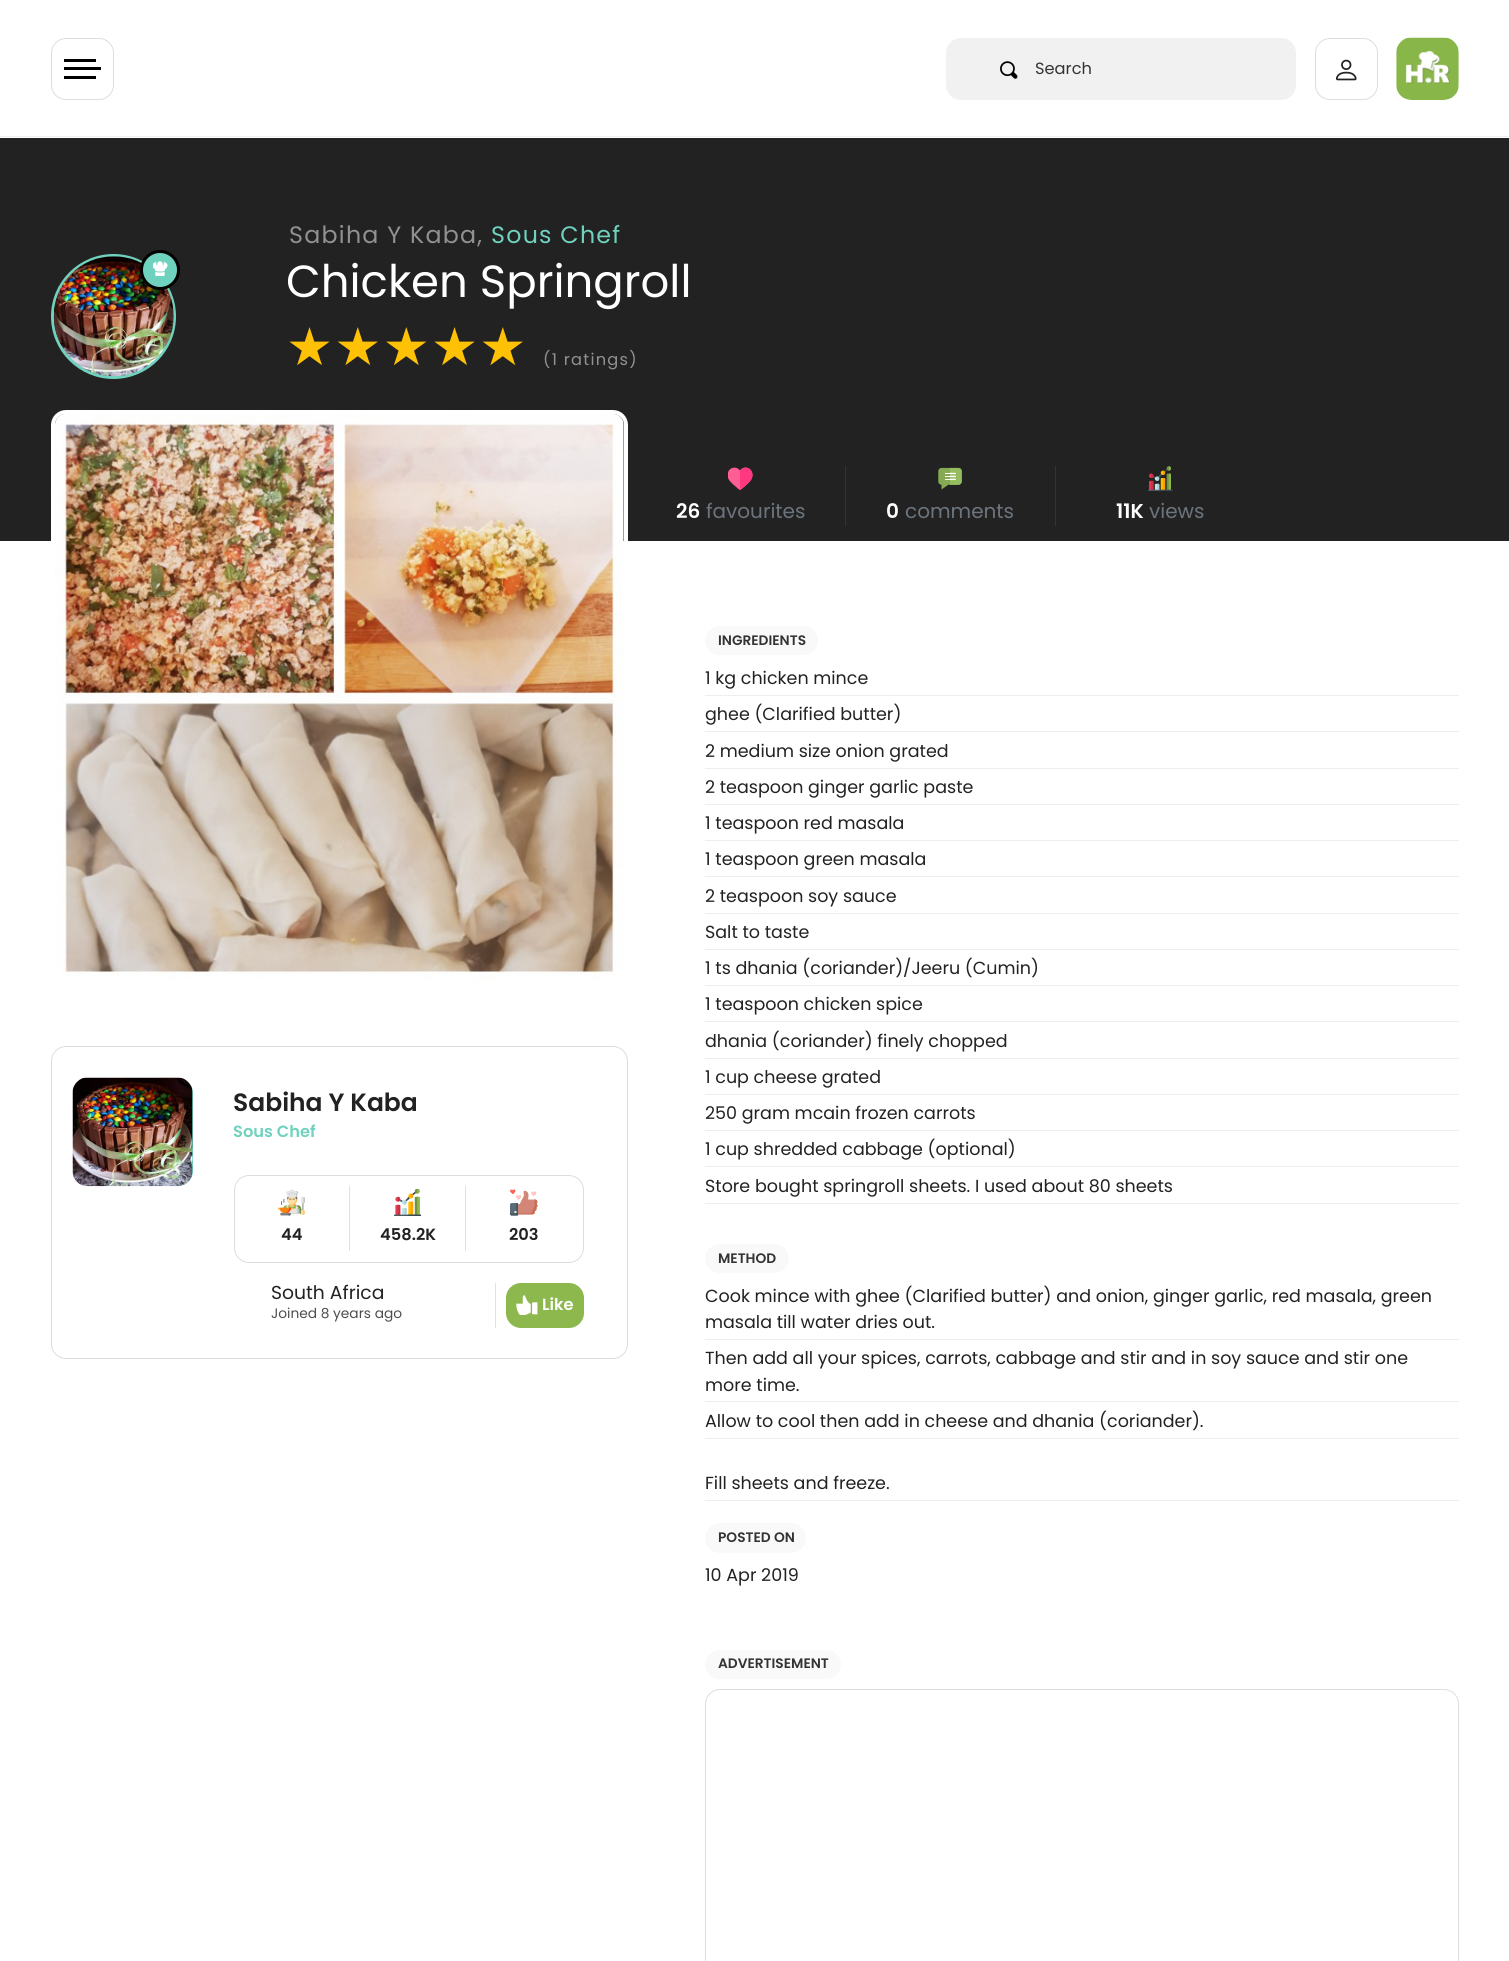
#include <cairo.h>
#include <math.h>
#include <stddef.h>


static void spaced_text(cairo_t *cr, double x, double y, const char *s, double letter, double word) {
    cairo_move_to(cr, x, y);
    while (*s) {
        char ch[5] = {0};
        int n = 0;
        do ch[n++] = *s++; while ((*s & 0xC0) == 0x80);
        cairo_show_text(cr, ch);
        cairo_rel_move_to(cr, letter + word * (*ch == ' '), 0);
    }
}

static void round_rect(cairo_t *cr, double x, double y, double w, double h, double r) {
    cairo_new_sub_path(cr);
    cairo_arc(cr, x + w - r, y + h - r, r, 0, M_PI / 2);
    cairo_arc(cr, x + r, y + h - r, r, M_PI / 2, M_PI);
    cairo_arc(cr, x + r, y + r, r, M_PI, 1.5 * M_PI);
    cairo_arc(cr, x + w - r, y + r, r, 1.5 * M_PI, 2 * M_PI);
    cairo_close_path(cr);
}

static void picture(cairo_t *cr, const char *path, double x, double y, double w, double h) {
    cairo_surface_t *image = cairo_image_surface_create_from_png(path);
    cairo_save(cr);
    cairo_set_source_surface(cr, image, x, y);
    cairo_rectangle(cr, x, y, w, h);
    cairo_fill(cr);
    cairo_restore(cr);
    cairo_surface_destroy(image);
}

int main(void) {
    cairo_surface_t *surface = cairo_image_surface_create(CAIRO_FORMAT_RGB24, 1509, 1961);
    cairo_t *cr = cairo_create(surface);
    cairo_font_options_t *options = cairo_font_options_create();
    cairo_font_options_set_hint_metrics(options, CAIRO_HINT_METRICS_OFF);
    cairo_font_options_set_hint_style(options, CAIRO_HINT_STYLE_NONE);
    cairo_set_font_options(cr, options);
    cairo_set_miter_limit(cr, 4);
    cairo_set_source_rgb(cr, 1, 1, 1);
    cairo_paint(cr);
    cairo_set_source_rgb(cr, 0.933, 0.933, 0.933);
    cairo_rectangle(cr, 0, 136, 1509, 1);
    cairo_fill(cr);
    round_rect(cr, 51.5, 38.5, 62, 61, 14.5);
    cairo_set_source_rgb(cr, 0.867, 0.867, 0.867);
    cairo_set_line_width(cr, 1);
    cairo_stroke(cr);
    cairo_set_source_rgb(cr, 0, 0, 0);
    cairo_rectangle(cr, 64, 59, 32, 3);
    cairo_fill(cr);
    cairo_rectangle(cr, 64, 67, 37, 3);
    cairo_fill(cr);
    cairo_rectangle(cr, 64, 76, 32, 3);
    cairo_fill(cr);
    cairo_set_source_rgb(cr, 0.945, 0.945, 0.945);
    round_rect(cr, 946, 38, 350, 62, 15);
    cairo_fill(cr);
    picture(cr, "img1.png", 1000, 61, 18, 18);
    cairo_select_font_face(cr, "Poppins", CAIRO_FONT_SLANT_NORMAL, CAIRO_FONT_WEIGHT_NORMAL);
    cairo_set_font_size(cr, 16.25);
    cairo_set_source_rgb(cr, 0.2, 0.2, 0.2);
    cairo_move_to(cr, 1035, 74);
    cairo_show_text(cr, "Search");
    round_rect(cr, 1315.5, 38.5, 62, 61, 14.5);
    cairo_set_source_rgb(cr, 0.867, 0.867, 0.867);
    cairo_stroke(cr);
    picture(cr, "img2.png", 1335, 59, 22, 22);
    picture(cr, "img3.png", 1396, 37, 63, 63);
    cairo_set_source_rgb(cr, 0.133, 0.133, 0.133);
    cairo_rectangle(cr, 0, 138, 1509, 403);
    cairo_fill(cr);
    cairo_set_font_size(cr, 23.75);
    cairo_set_source_rgb(cr, 0.569, 0.569, 0.569);
    spaced_text(cr, 289, 243, "Sabiha Y Kaba,", 1.25, 0);
    cairo_set_source_rgb(cr, 0.435, 0.824, 0.745);
    spaced_text(cr, 491, 243, "Sous Chef", 1.25, 0);
    cairo_new_path(cr);
    cairo_arc(cr, 113.5, 316.5, 61, 0, 2 * M_PI);
    cairo_set_line_width(cr, 3);
    cairo_stroke(cr);
    picture(cr, "img5.png", 53, 256, 121, 121);
    cairo_arc(cr, 160, 270, 18.5, 0, 2 * M_PI);
    cairo_fill_preserve(cr);
    cairo_set_source_rgb(cr, 0, 0, 0);
    cairo_stroke(cr);
    picture(cr, "img4.png", 153, 261, 15, 15);
    cairo_set_font_size(cr, 45);
    cairo_set_source_rgb(cr, 1, 1, 1);
    cairo_move_to(cr, 286, 297);
    cairo_show_text(cr, "Chicken Springroll");
    cairo_select_font_face(cr, "DejaVu Sans", CAIRO_FONT_SLANT_NORMAL, CAIRO_FONT_WEIGHT_NORMAL);
    cairo_set_font_size(cr, 52.5);
    cairo_set_source_rgb(cr, 1, 0.757, 0.027);
    spaced_text(cr, 286, 365, "★★★★★", 1.25, 0);
    cairo_select_font_face(cr, "Poppins", CAIRO_FONT_SLANT_NORMAL, CAIRO_FONT_WEIGHT_NORMAL);
    cairo_set_font_size(cr, 16.25);
    cairo_set_source_rgb(cr, 0.569, 0.569, 0.569);
    spaced_text(cr, 543, 365, "(1 ratings)", 1.25, 0);
    round_rect(cr, 53, 412, 573, 572, 13);
    cairo_set_source_rgb(cr, 1, 1, 1);
    cairo_set_line_width(cr, 4);
    cairo_stroke(cr);
    picture(cr, "img6.png", 55, 414, 569, 567);
    round_rect(cr, 51.5, 1046.5, 576, 312, 14.5);
    cairo_set_source_rgb(cr, 0.867, 0.867, 0.867);
    cairo_set_line_width(cr, 1);
    cairo_stroke(cr);
    cairo_set_source_rgb(cr, 0.435, 0.824, 0.745);
    round_rect(cr, 73, 1078, 120, 108, 15);
    cairo_fill(cr);
    picture(cr, "img7.png", 72, 1077, 121, 110);
    cairo_select_font_face(cr, "Poppins SemiBold", CAIRO_FONT_SLANT_NORMAL, CAIRO_FONT_WEIGHT_NORMAL);
    cairo_set_font_size(cr, 25);
    cairo_set_source_rgb(cr, 0.133, 0.133, 0.133);
    cairo_move_to(cr, 233, 1111);
    cairo_show_text(cr, "Sabiha Y Kaba");
    cairo_set_font_size(cr, 16.25);
    cairo_set_source_rgb(cr, 0.435, 0.824, 0.745);
    cairo_move_to(cr, 233, 1137);
    cairo_show_text(cr, "Sous Chef");
    round_rect(cr, 234.5, 1175.5, 349, 87, 14.5);
    cairo_set_source_rgb(cr, 0.867, 0.867, 0.867);
    cairo_stroke(cr);
    cairo_set_source_rgb(cr, 0.871, 0.886, 0.902);
    cairo_rectangle(cr, 349, 1186, 1, 65);
    cairo_fill(cr);
    picture(cr, "img8.png", 278, 1189, 27, 27);
    cairo_set_source_rgb(cr, 0.133, 0.133, 0.133);
    cairo_move_to(cr, 281, 1240);
    cairo_show_text(cr, "44");
    cairo_set_source_rgb(cr, 0.871, 0.886, 0.902);
    cairo_rectangle(cr, 465, 1186, 1, 65);
    cairo_fill(cr);
    picture(cr, "img9.png", 394, 1189, 27, 27);
    cairo_set_source_rgb(cr, 0.133, 0.133, 0.133);
    cairo_move_to(cr, 380, 1240);
    cairo_show_text(cr, "458.2K");
    picture(cr, "img10.png", 510, 1189, 28, 27);
    cairo_move_to(cr, 509, 1240);
    cairo_show_text(cr, "203");
    cairo_select_font_face(cr, "Poppins", CAIRO_FONT_SLANT_NORMAL, CAIRO_FONT_WEIGHT_NORMAL);
    cairo_set_font_size(cr, 18.75);
    cairo_move_to(cr, 271, 1299);
    cairo_show_text(cr, "South Africa");
    cairo_set_font_size(cr, 13.75);
    cairo_set_source_rgb(cr, 0.302, 0.302, 0.302);
    cairo_move_to(cr, 271, 1318);
    cairo_show_text(cr, "Joined 8 years ago");
    cairo_set_source_rgb(cr, 0.871, 0.886, 0.902);
    cairo_rectangle(cr, 495, 1283, 1, 45);
    cairo_fill(cr);
    cairo_set_source_rgb(cr, 0.549, 0.722, 0.306);
    round_rect(cr, 506, 1283, 78, 45, 15);
    cairo_fill(cr);
    picture(cr, "img11.png", 516, 1295, 22, 20);
    cairo_select_font_face(cr, "Poppins SemiBold", CAIRO_FONT_SLANT_NORMAL, CAIRO_FONT_WEIGHT_NORMAL);
    cairo_set_font_size(cr, 16.25);
    cairo_set_source_rgb(cr, 1, 1, 1);
    cairo_move_to(cr, 542, 1310);
    cairo_show_text(cr, "Like");
    cairo_set_source_rgb(cr, 0.2, 0.2, 0.2);
    cairo_rectangle(cr, 845, 466, 1, 60);
    cairo_fill(cr);
    picture(cr, "img12.png", 728, 467, 25, 23);
    cairo_set_font_size(cr, 20);
    cairo_set_source_rgb(cr, 1, 1, 1);
    cairo_move_to(cr, 676, 518);
    cairo_show_text(cr, "26");
    cairo_select_font_face(cr, "Poppins", CAIRO_FONT_SLANT_NORMAL, CAIRO_FONT_WEIGHT_NORMAL);
    cairo_set_source_rgb(cr, 0.424, 0.459, 0.49);
    cairo_move_to(cr, 706, 518);
    cairo_show_text(cr, "favourites");
    cairo_set_source_rgb(cr, 0.2, 0.2, 0.2);
    cairo_rectangle(cr, 1055, 466, 1, 60);
    cairo_fill(cr);
    picture(cr, "img13.png", 938, 467, 24, 23);
    cairo_select_font_face(cr, "Poppins SemiBold", CAIRO_FONT_SLANT_NORMAL, CAIRO_FONT_WEIGHT_NORMAL);
    cairo_set_source_rgb(cr, 1, 1, 1);
    cairo_move_to(cr, 886, 518);
    cairo_show_text(cr, "0");
    cairo_select_font_face(cr, "Poppins", CAIRO_FONT_SLANT_NORMAL, CAIRO_FONT_WEIGHT_NORMAL);
    cairo_set_source_rgb(cr, 0.424, 0.459, 0.49);
    cairo_move_to(cr, 905, 518);
    cairo_show_text(cr, "comments");
    picture(cr, "img14.png", 1148, 466, 25, 25);
    cairo_select_font_face(cr, "Poppins SemiBold", CAIRO_FONT_SLANT_NORMAL, CAIRO_FONT_WEIGHT_NORMAL);
    cairo_set_source_rgb(cr, 1, 1, 1);
    cairo_move_to(cr, 1116, 518);
    cairo_show_text(cr, "11K");
    cairo_select_font_face(cr, "Poppins", CAIRO_FONT_SLANT_NORMAL, CAIRO_FONT_WEIGHT_NORMAL);
    cairo_set_source_rgb(cr, 0.424, 0.459, 0.49);
    cairo_move_to(cr, 1149, 518);
    cairo_show_text(cr, "views");
    cairo_set_source_rgb(cr, 0.973, 0.973, 0.973);
    round_rect(cr, 705, 626, 113, 29, 14.5);
    cairo_fill(cr);
    cairo_select_font_face(cr, "Poppins SemiBold", CAIRO_FONT_SLANT_NORMAL, CAIRO_FONT_WEIGHT_NORMAL);
    cairo_set_font_size(cr, 13.75);
    cairo_set_source_rgb(cr, 0.2, 0.2, 0.2);
    cairo_move_to(cr, 718, 645);
    cairo_show_text(cr, "INGREDIENTS");
    cairo_set_source_rgb(cr, 0.933, 0.933, 0.933);
    cairo_rectangle(cr, 705, 695, 754, 1);
    cairo_fill(cr);
    cairo_select_font_face(cr, "Poppins", CAIRO_FONT_SLANT_NORMAL, CAIRO_FONT_WEIGHT_NORMAL);
    cairo_set_font_size(cr, 17.5);
    cairo_set_source_rgb(cr, 0.133, 0.133, 0.133);
    cairo_move_to(cr, 705, 684);
    cairo_show_text(cr, "1 kg chicken mince");
    cairo_set_source_rgb(cr, 0.933, 0.933, 0.933);
    cairo_rectangle(cr, 705, 731, 754, 1);
    cairo_fill(cr);
    cairo_set_source_rgb(cr, 0.133, 0.133, 0.133);
    cairo_move_to(cr, 705, 720);
    cairo_show_text(cr, "ghee (Clarified butter)");
    cairo_set_source_rgb(cr, 0.933, 0.933, 0.933);
    cairo_rectangle(cr, 705, 768, 754, 1);
    cairo_fill(cr);
    cairo_set_source_rgb(cr, 0.133, 0.133, 0.133);
    cairo_move_to(cr, 705, 757);
    cairo_show_text(cr, "2 medium size onion grated");
    cairo_set_source_rgb(cr, 0.933, 0.933, 0.933);
    cairo_rectangle(cr, 705, 804, 754, 1);
    cairo_fill(cr);
    cairo_set_source_rgb(cr, 0.133, 0.133, 0.133);
    cairo_move_to(cr, 705, 793);
    cairo_show_text(cr, "2 teaspoon ginger garlic paste");
    cairo_set_source_rgb(cr, 0.933, 0.933, 0.933);
    cairo_rectangle(cr, 705, 840, 754, 1);
    cairo_fill(cr);
    cairo_set_source_rgb(cr, 0.133, 0.133, 0.133);
    cairo_move_to(cr, 705, 829);
    cairo_show_text(cr, "1 teaspoon red masala");
    cairo_set_source_rgb(cr, 0.933, 0.933, 0.933);
    cairo_rectangle(cr, 705, 876, 754, 1);
    cairo_fill(cr);
    cairo_set_source_rgb(cr, 0.133, 0.133, 0.133);
    cairo_move_to(cr, 705, 865);
    cairo_show_text(cr, "1 teaspoon green masala");
    cairo_set_source_rgb(cr, 0.933, 0.933, 0.933);
    cairo_rectangle(cr, 705, 913, 754, 1);
    cairo_fill(cr);
    cairo_set_source_rgb(cr, 0.133, 0.133, 0.133);
    cairo_move_to(cr, 705, 902);
    cairo_show_text(cr, "2 teaspoon soy sauce");
    cairo_set_source_rgb(cr, 0.933, 0.933, 0.933);
    cairo_rectangle(cr, 705, 949, 754, 1);
    cairo_fill(cr);
    cairo_set_source_rgb(cr, 0.133, 0.133, 0.133);
    cairo_move_to(cr, 705, 938);
    cairo_show_text(cr, "Salt to taste");
    cairo_set_source_rgb(cr, 0.933, 0.933, 0.933);
    cairo_rectangle(cr, 705, 985, 754, 1);
    cairo_fill(cr);
    cairo_set_source_rgb(cr, 0.133, 0.133, 0.133);
    cairo_move_to(cr, 705, 974);
    cairo_show_text(cr, "1 ts dhania (coriander)/Jeeru (Cumin)");
    cairo_set_source_rgb(cr, 0.933, 0.933, 0.933);
    cairo_rectangle(cr, 705, 1021, 754, 1);
    cairo_fill(cr);
    cairo_set_source_rgb(cr, 0.133, 0.133, 0.133);
    cairo_move_to(cr, 705, 1010);
    cairo_show_text(cr, "1 teaspoon chicken spice");
    cairo_set_source_rgb(cr, 0.933, 0.933, 0.933);
    cairo_rectangle(cr, 705, 1058, 754, 1);
    cairo_fill(cr);
    cairo_set_source_rgb(cr, 0.133, 0.133, 0.133);
    cairo_move_to(cr, 705, 1047);
    cairo_show_text(cr, "dhania (coriander) finely chopped");
    cairo_set_source_rgb(cr, 0.933, 0.933, 0.933);
    cairo_rectangle(cr, 705, 1094, 754, 1);
    cairo_fill(cr);
    cairo_set_source_rgb(cr, 0.133, 0.133, 0.133);
    cairo_move_to(cr, 705, 1083);
    cairo_show_text(cr, "1 cup cheese grated");
    cairo_set_source_rgb(cr, 0.933, 0.933, 0.933);
    cairo_rectangle(cr, 705, 1130, 754, 1);
    cairo_fill(cr);
    cairo_set_source_rgb(cr, 0.133, 0.133, 0.133);
    cairo_move_to(cr, 705, 1119);
    cairo_show_text(cr, "250 gram mcain frozen carrots");
    cairo_set_source_rgb(cr, 0.933, 0.933, 0.933);
    cairo_rectangle(cr, 705, 1166, 754, 1);
    cairo_fill(cr);
    cairo_set_source_rgb(cr, 0.133, 0.133, 0.133);
    cairo_move_to(cr, 705, 1155);
    cairo_show_text(cr, "1 cup shredded cabbage (optional)");
    cairo_set_source_rgb(cr, 0.933, 0.933, 0.933);
    cairo_rectangle(cr, 705, 1203, 754, 1);
    cairo_fill(cr);
    cairo_set_source_rgb(cr, 0.133, 0.133, 0.133);
    cairo_move_to(cr, 705, 1192);
    cairo_show_text(cr, "Store bought springroll sheets. I used about 80 sheets");
    cairo_set_source_rgb(cr, 0.973, 0.973, 0.973);
    round_rect(cr, 705, 1244, 84, 29, 14.5);
    cairo_fill(cr);
    cairo_select_font_face(cr, "Poppins SemiBold", CAIRO_FONT_SLANT_NORMAL, CAIRO_FONT_WEIGHT_NORMAL);
    cairo_set_font_size(cr, 13.75);
    cairo_set_source_rgb(cr, 0.2, 0.2, 0.2);
    cairo_move_to(cr, 718, 1263);
    cairo_show_text(cr, "METHOD");
    cairo_set_source_rgb(cr, 0.933, 0.933, 0.933);
    cairo_rectangle(cr, 705, 1339, 754, 1);
    cairo_fill(cr);
    cairo_select_font_face(cr, "Poppins", CAIRO_FONT_SLANT_NORMAL, CAIRO_FONT_WEIGHT_NORMAL);
    cairo_set_font_size(cr, 17.5);
    cairo_set_source_rgb(cr, 0.133, 0.133, 0.133);
    cairo_move_to(cr, 705, 1302);
    cairo_show_text(cr, "Cook mince with ghee (Clarified butter) and onion, ginger garlic, red masala, green");
    cairo_move_to(cr, 705, 1328);
    cairo_show_text(cr, "masala till water dries out.");
    cairo_set_source_rgb(cr, 0.933, 0.933, 0.933);
    cairo_rectangle(cr, 705, 1401, 754, 1);
    cairo_fill(cr);
    cairo_set_source_rgb(cr, 0.133, 0.133, 0.133);
    cairo_move_to(cr, 705, 1364);
    cairo_show_text(cr, "Then add all your spices, carrots, cabbage and stir and in soy sauce and stir one");
    cairo_move_to(cr, 705, 1391);
    cairo_show_text(cr, "more time.");
    cairo_set_source_rgb(cr, 0.933, 0.933, 0.933);
    cairo_rectangle(cr, 705, 1438, 754, 1);
    cairo_fill(cr);
    cairo_set_source_rgb(cr, 0.133, 0.133, 0.133);
    cairo_move_to(cr, 705, 1427);
    cairo_show_text(cr, "Allow to cool then add in cheese and dhania (coriander).");
    cairo_set_source_rgb(cr, 0.933, 0.933, 0.933);
    cairo_rectangle(cr, 705, 1500, 754, 1);
    cairo_fill(cr);
    cairo_set_source_rgb(cr, 0.133, 0.133, 0.133);
    cairo_move_to(cr, 705, 1489);
    cairo_show_text(cr, "Fill sheets and freeze.");
    cairo_set_source_rgb(cr, 0.973, 0.973, 0.973);
    round_rect(cr, 705, 1523, 101, 30, 15);
    cairo_fill(cr);
    cairo_select_font_face(cr, "Poppins SemiBold", CAIRO_FONT_SLANT_NORMAL, CAIRO_FONT_WEIGHT_NORMAL);
    cairo_set_font_size(cr, 13.75);
    cairo_set_source_rgb(cr, 0.2, 0.2, 0.2);
    cairo_move_to(cr, 718, 1542);
    cairo_show_text(cr, "POSTED ON");
    cairo_select_font_face(cr, "Poppins", CAIRO_FONT_SLANT_NORMAL, CAIRO_FONT_WEIGHT_NORMAL);
    cairo_set_font_size(cr, 17.5);
    cairo_set_source_rgb(cr, 0.133, 0.133, 0.133);
    cairo_move_to(cr, 705, 1581);
    cairo_show_text(cr, "10 Apr 2019");
    cairo_set_source_rgb(cr, 0.973, 0.973, 0.973);
    round_rect(cr, 705, 1650, 136, 29, 14.5);
    cairo_fill(cr);
    cairo_select_font_face(cr, "Poppins SemiBold", CAIRO_FONT_SLANT_NORMAL, CAIRO_FONT_WEIGHT_NORMAL);
    cairo_set_font_size(cr, 13.75);
    cairo_set_source_rgb(cr, 0.2, 0.2, 0.2);
    cairo_move_to(cr, 718, 1668);
    cairo_show_text(cr, "ADVERTISEMENT");
    round_rect(cr, 705.5, 1689.5, 753, 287, 14.5);
    cairo_set_source_rgb(cr, 0.867, 0.867, 0.867);
    cairo_stroke(cr);
    cairo_surface_write_to_png(surface, "page.png");
    cairo_font_options_destroy(options);
    cairo_destroy(cr);
    cairo_surface_destroy(surface);
    return 0;
}
